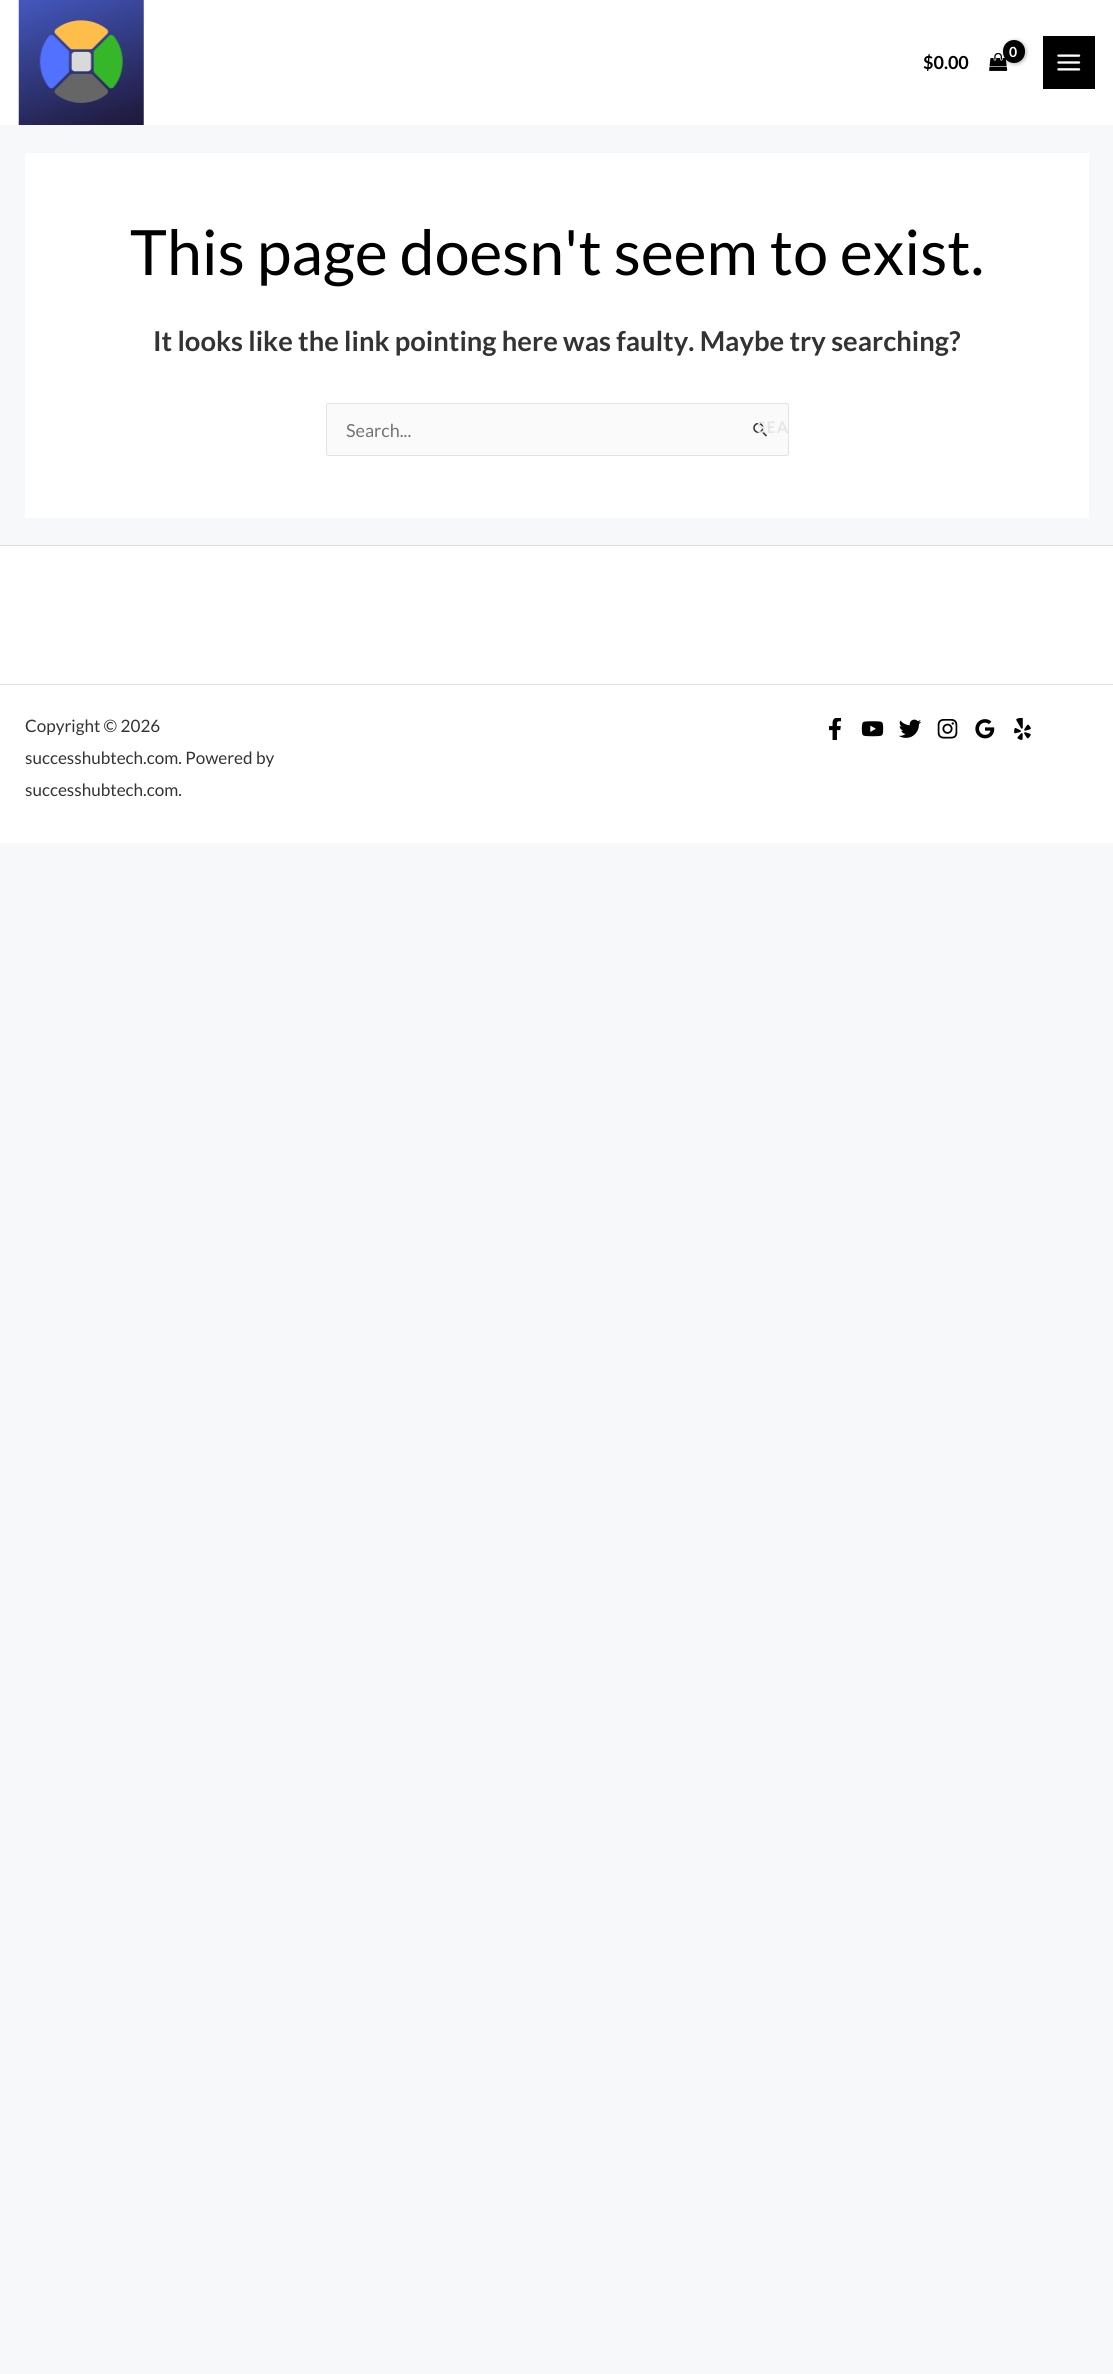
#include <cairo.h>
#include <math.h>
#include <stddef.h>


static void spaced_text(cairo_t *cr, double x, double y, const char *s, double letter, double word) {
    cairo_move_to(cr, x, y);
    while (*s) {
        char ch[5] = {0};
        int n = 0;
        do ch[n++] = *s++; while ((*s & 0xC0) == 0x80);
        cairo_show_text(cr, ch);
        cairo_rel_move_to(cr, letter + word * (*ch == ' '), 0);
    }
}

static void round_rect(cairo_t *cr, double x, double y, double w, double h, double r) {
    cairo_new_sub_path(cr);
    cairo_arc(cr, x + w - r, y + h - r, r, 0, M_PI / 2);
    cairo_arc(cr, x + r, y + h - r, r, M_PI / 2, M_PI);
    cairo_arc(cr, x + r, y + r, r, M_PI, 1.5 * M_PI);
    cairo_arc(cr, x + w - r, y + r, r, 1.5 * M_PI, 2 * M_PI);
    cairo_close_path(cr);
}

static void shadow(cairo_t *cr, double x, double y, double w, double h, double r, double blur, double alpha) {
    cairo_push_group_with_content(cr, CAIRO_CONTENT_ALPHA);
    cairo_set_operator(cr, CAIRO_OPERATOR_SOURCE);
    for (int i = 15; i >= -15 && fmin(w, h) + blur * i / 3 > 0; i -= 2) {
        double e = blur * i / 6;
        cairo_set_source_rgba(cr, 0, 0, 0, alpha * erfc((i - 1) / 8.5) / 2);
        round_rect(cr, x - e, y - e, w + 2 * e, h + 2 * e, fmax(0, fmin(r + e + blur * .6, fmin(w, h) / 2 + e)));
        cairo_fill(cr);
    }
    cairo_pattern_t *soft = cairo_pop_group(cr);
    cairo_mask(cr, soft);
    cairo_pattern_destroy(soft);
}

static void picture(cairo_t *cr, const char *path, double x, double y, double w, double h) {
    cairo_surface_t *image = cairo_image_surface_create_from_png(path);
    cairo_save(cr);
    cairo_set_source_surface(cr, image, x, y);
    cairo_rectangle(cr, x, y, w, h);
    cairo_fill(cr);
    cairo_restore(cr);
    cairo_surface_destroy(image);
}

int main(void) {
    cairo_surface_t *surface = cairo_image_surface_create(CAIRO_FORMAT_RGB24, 1113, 2374);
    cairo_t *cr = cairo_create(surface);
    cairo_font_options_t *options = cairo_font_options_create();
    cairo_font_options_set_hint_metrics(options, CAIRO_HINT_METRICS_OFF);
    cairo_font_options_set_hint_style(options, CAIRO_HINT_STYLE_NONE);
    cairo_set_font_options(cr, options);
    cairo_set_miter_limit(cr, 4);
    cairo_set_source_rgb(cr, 0.961, 0.969, 0.976);
    cairo_paint(cr);
    cairo_set_source_rgb(cr, 1, 1, 1);
    cairo_rectangle(cr, 0, 0, 1113, 125);
    cairo_fill(cr);
    picture(cr, "img1.png", 18, 0, 126, 125);
    picture(cr, "img2.png", 989, 53, 19, 18);
    cairo_set_source_rgb(cr, 0, 0, 0);
    shadow(cr, 1004, 41, 22, 23, 11, 2, 0.3);
    cairo_set_source_rgb(cr, 0, 0, 0);
    round_rect(cr, 1003, 40, 22, 23, 11);
    cairo_fill(cr);
    cairo_select_font_face(cr, "Lato", CAIRO_FONT_SLANT_NORMAL, CAIRO_FONT_WEIGHT_BOLD);
    cairo_set_font_size(cr, 14);
    cairo_set_source_rgb(cr, 1, 1, 1);
    spaced_text(cr, 1009, 57, "0", -1, 0);
    cairo_set_font_size(cr, 18);
    cairo_set_source_rgb(cr, 0, 0, 0);
    cairo_move_to(cr, 923, 69);
    cairo_show_text(cr, "$0.00");
    cairo_rectangle(cr, 1043, 36, 52, 53);
    cairo_fill(cr);
    picture(cr, "img3.png", 1057, 54, 24, 17);
    cairo_set_source_rgb(cr, 1, 1, 1);
    cairo_rectangle(cr, 25, 153, 1064, 365);
    cairo_fill(cr);
    cairo_select_font_face(cr, "Lato", CAIRO_FONT_SLANT_NORMAL, CAIRO_FONT_WEIGHT_NORMAL);
    cairo_set_font_size(cr, 62.5);
    cairo_set_source_rgb(cr, 0, 0, 0);
    cairo_move_to(cr, 130, 275);
    cairo_show_text(cr, "This page doesn't seem to exist.");
    cairo_select_font_face(cr, "Lato", CAIRO_FONT_SLANT_NORMAL, CAIRO_FONT_WEIGHT_BOLD);
    cairo_set_font_size(cr, 27.35);
    cairo_set_source_rgb(cr, 0.2, 0.2, 0.2);
    cairo_move_to(cr, 153, 351);
    cairo_show_text(cr, "It looks like the link pointing here was faulty. Maybe try searching?");
    cairo_set_source_rgb(cr, 0.98, 0.98, 0.98);
    round_rect(cr, 326.5, 403.5, 462, 52, 2);
    cairo_fill_preserve(cr);
    cairo_set_source_rgb(cr, 0.886, 0.886, 0.886);
    cairo_set_line_width(cr, 1);
    cairo_stroke(cr);
    cairo_select_font_face(cr, "Lato", CAIRO_FONT_SLANT_NORMAL, CAIRO_FONT_WEIGHT_NORMAL);
    cairo_set_font_size(cr, 18);
    cairo_set_source_rgb(cr, 0.459, 0.459, 0.459);
    cairo_move_to(cr, 346, 437);
    cairo_show_text(cr, "Search...");
    picture(cr, "img4.png", 753, 423, 15, 14);
    cairo_select_font_face(cr, "Lato", CAIRO_FONT_SLANT_NORMAL, CAIRO_FONT_WEIGHT_BOLD);
    cairo_set_font_size(cr, 16);
    cairo_set_source_rgb(cr, 0.902, 0.902, 0.902);
    spaced_text(cr, 757, 433, "SEA", 1, 0);
    cairo_set_source_rgb(cr, 1, 1, 1);
    cairo_rectangle(cr, 0, 546, 1113, 297);
    cairo_fill(cr);
    cairo_set_source_rgb(cr, 0.867, 0.867, 0.867);
    cairo_rectangle(cr, 0, 545, 1113, 1);
    cairo_fill(cr);
    cairo_rectangle(cr, 0, 684, 1113, 1);
    cairo_fill(cr);
    cairo_select_font_face(cr, "Lato", CAIRO_FONT_SLANT_NORMAL, CAIRO_FONT_WEIGHT_NORMAL);
    cairo_set_font_size(cr, 17.1);
    cairo_set_source_rgb(cr, 0.2, 0.2, 0.2);
    cairo_move_to(cr, 25, 732);
    cairo_show_text(cr, "Copyright © 2026");
    cairo_move_to(cr, 25, 764);
    cairo_show_text(cr, "successhubtech.com. Powered by");
    cairo_move_to(cr, 25, 796);
    cairo_show_text(cr, "successhubtech.com.");
    picture(cr, "img5.png", 828, 718, 14, 22);
    picture(cr, "img6.png", 861, 721, 23, 16);
    picture(cr, "img7.png", 899, 719, 22, 19);
    picture(cr, "img8.png", 937, 719, 21, 20);
    picture(cr, "img9.png", 975, 719, 20, 20);
    picture(cr, "img10.png", 1014, 718, 17, 22);
    cairo_surface_write_to_png(surface, "page.png");
    cairo_font_options_destroy(options);
    cairo_destroy(cr);
    cairo_surface_destroy(surface);
    return 0;
}
